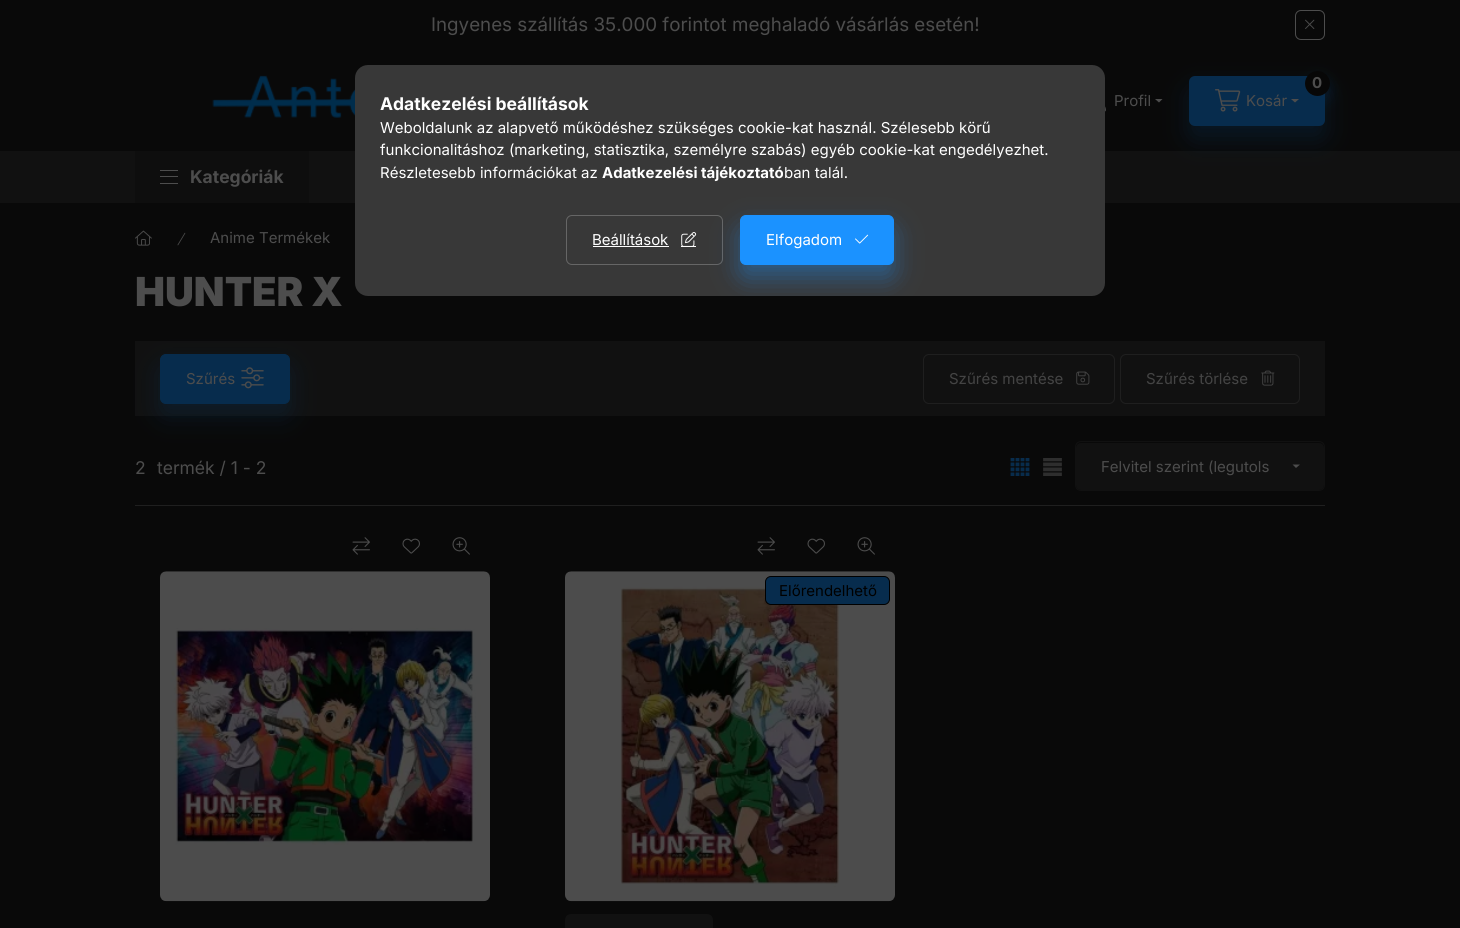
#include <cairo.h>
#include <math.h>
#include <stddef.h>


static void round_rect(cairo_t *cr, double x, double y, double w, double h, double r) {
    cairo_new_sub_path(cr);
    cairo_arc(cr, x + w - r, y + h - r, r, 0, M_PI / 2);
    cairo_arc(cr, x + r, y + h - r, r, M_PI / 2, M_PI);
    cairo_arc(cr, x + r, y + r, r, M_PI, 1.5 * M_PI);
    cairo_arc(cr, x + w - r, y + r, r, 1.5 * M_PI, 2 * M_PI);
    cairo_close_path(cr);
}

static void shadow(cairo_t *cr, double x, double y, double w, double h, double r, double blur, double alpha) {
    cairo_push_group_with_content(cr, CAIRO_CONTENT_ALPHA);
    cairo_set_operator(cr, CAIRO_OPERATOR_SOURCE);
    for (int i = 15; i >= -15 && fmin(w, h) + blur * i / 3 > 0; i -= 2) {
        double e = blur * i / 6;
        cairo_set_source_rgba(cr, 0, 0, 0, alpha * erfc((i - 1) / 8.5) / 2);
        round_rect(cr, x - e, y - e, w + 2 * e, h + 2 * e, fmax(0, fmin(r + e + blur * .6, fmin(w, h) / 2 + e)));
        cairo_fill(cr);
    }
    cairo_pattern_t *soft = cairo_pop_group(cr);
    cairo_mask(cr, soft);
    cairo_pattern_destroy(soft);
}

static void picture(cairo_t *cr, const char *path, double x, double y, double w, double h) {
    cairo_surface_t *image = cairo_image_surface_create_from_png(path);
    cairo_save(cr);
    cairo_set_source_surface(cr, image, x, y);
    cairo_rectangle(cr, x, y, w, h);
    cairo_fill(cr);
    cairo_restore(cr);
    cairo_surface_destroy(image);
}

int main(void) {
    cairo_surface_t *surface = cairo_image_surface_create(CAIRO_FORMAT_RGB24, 1460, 928);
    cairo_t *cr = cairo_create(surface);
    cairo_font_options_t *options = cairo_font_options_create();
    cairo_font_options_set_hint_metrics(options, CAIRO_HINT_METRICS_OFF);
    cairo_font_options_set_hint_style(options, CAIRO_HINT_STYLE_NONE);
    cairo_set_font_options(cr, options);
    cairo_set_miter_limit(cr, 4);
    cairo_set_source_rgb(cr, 0.039, 0.039, 0.039);
    cairo_paint(cr);
    cairo_select_font_face(cr, "Inter", CAIRO_FONT_SLANT_NORMAL, CAIRO_FONT_WEIGHT_NORMAL);
    cairo_set_font_size(cr, 18.75);
    cairo_set_source_rgb(cr, 0.302, 0.302, 0.302);
    cairo_move_to(cr, 431, 31);
    cairo_show_text(cr, "Ingyenes szállítás 35.000 forintot meghaladó vásárlás esetén!");
    round_rect(cr, 1295.5, 10.5, 29, 29, 5.5);
    cairo_set_line_width(cr, 1);
    cairo_stroke(cr);
    picture(cr, "img1.png", 1305, 19, 10, 10);
    picture(cr, "img2.png", 212, 75, 143, 43);
    cairo_set_font_size(cr, 15);
    cairo_move_to(cr, 1114, 106);
    cairo_show_text(cr, "Profil");
    cairo_set_source_rgb(cr, 0.067, 0.067, 0.067);
    cairo_rectangle(cr, 0, 151, 1460, 52);
    cairo_fill(cr);
    cairo_set_source_rgb(cr, 0.031, 0.173, 0.302);
    shadow(cr, 1189, 89, 136, 50, 6, 12.5, 0.4);
    cairo_set_source_rgb(cr, 0.302, 0.302, 0.302);
    cairo_new_path(cr);
    cairo_move_to(cr, 1155, 99);
    cairo_line_to(cr, 1162.5, 99);
    cairo_line_to(cr, 1159, 102.5);
    cairo_close_path(cr);
    cairo_fill(cr);
    picture(cr, "img3.png", 1105, 106, 1, 6);
    cairo_set_source_rgb(cr, 0.031, 0.173, 0.302);
    round_rect(cr, 1189, 76, 136, 50, 6);
    cairo_fill(cr);
    cairo_set_source_rgb(cr, 0.031, 0.173, 0.302);
    shadow(cr, 1305, 78, 25, 25, 12.5, 6, 0.4);
    cairo_set_source_rgb(cr, 0.031, 0.031, 0.031);
    cairo_arc(cr, 1317.5, 83.5, 12.5, 0, 2 * M_PI);
    cairo_fill(cr);
    cairo_select_font_face(cr, "Inter", CAIRO_FONT_SLANT_NORMAL, CAIRO_FONT_WEIGHT_BOLD);
    cairo_set_source_rgb(cr, 0.302, 0.302, 0.302);
    cairo_move_to(cr, 1312, 88);
    cairo_show_text(cr, "0");
    picture(cr, "img4.png", 1215, 89, 26, 23);
    cairo_select_font_face(cr, "Inter", CAIRO_FONT_SLANT_NORMAL, CAIRO_FONT_WEIGHT_NORMAL);
    cairo_move_to(cr, 1246, 106);
    cairo_show_text(cr, "Kosár");
    cairo_new_path(cr);
    cairo_move_to(cr, 1291, 99);
    cairo_line_to(cr, 1299, 99);
    cairo_line_to(cr, 1295, 102.5);
    cairo_close_path(cr);
    cairo_fill(cr);
    cairo_set_source_rgb(cr, 0.055, 0.055, 0.055);
    cairo_rectangle(cr, 135, 151, 174, 52);
    cairo_fill(cr);
    cairo_set_source_rgb(cr, 0.302, 0.302, 0.302);
    cairo_rectangle(cr, 160, 170, 18, 1);
    cairo_fill(cr);
    cairo_rectangle(cr, 160, 176, 18, 1);
    cairo_fill(cr);
    cairo_rectangle(cr, 160, 183, 18, 1);
    cairo_fill(cr);
    cairo_select_font_face(cr, "Inter", CAIRO_FONT_SLANT_NORMAL, CAIRO_FONT_WEIGHT_BOLD);
    cairo_set_font_size(cr, 17.5);
    cairo_move_to(cr, 190, 183);
    cairo_show_text(cr, "Kategóriák");
    picture(cr, "img5.png", 135, 230, 17, 16);
    picture(cr, "img6.png", 177, 232, 9, 14);
    cairo_select_font_face(cr, "Inter", CAIRO_FONT_SLANT_NORMAL, CAIRO_FONT_WEIGHT_NORMAL);
    cairo_set_font_size(cr, 15);
    cairo_move_to(cr, 210, 243);
    cairo_show_text(cr, "Anime Termékek");
    cairo_select_font_face(cr, "Inter Black", CAIRO_FONT_SLANT_NORMAL, CAIRO_FONT_WEIGHT_NORMAL);
    cairo_set_font_size(cr, 40);
    cairo_move_to(cr, 135, 306);
    cairo_show_text(cr, "HUNTER X");
    cairo_set_source_rgb(cr, 0.067, 0.067, 0.067);
    cairo_rectangle(cr, 135, 341, 1190, 75);
    cairo_fill(cr);
    cairo_set_source_rgb(cr, 0.031, 0.173, 0.302);
    shadow(cr, 160, 366, 130, 50, 6, 12.5, 0.4);
    cairo_set_source_rgb(cr, 0.031, 0.173, 0.302);
    round_rect(cr, 160.5, 354.5, 129, 49, 5.5);
    cairo_fill_preserve(cr);
    cairo_stroke(cr);
    cairo_select_font_face(cr, "Inter", CAIRO_FONT_SLANT_NORMAL, CAIRO_FONT_WEIGHT_NORMAL);
    cairo_set_font_size(cr, 15);
    cairo_set_source_rgb(cr, 0.302, 0.302, 0.302);
    cairo_move_to(cr, 186, 384);
    cairo_show_text(cr, "Szűrés");
    picture(cr, "img7.png", 241, 367, 23, 22);
    round_rect(cr, 923.5, 354.5, 191, 49, 5.5);
    cairo_set_source_rgb(cr, 0.122, 0.122, 0.122);
    cairo_stroke(cr);
    cairo_set_source_rgb(cr, 0.267, 0.267, 0.267);
    cairo_move_to(cr, 949, 384);
    cairo_show_text(cr, "Szűrés mentése");
    picture(cr, "img8.png", 1076, 371, 14, 14);
    round_rect(cr, 1120.5, 354.5, 179, 49, 5.5);
    cairo_set_source_rgb(cr, 0.122, 0.122, 0.122);
    cairo_stroke(cr);
    cairo_set_source_rgb(cr, 0.267, 0.267, 0.267);
    cairo_move_to(cr, 1146, 384);
    cairo_show_text(cr, "Szűrés törlése");
    picture(cr, "img9.png", 1261, 370, 14, 16);
    cairo_set_source_rgb(cr, 0.122, 0.122, 0.122);
    cairo_rectangle(cr, 135, 505, 1190, 1);
    cairo_fill(cr);
    cairo_set_font_size(cr, 17.5);
    cairo_set_source_rgb(cr, 0.302, 0.302, 0.302);
    cairo_move_to(cr, 135, 474);
    cairo_show_text(cr, "2");
    cairo_move_to(cr, 157, 474);
    cairo_show_text(cr, "termék / 1 - 2");
    picture(cr, "img10.png", 1010, 458, 20, 18);
    picture(cr, "img11.png", 1043, 458, 19, 18);
    cairo_set_source_rgb(cr, 0.067, 0.067, 0.067);
    round_rect(cr, 1076, 443, 248, 47, 5);
    cairo_fill(cr);
    round_rect(cr, 1075.5, 441.5, 249, 49, 5.5);
    cairo_stroke(cr);
    cairo_set_font_size(cr, 15);
    cairo_set_source_rgb(cr, 0.302, 0.302, 0.302);
    cairo_move_to(cr, 1101, 472);
    cairo_show_text(cr, "Felvitel szerint (legutols");
    cairo_new_path(cr);
    cairo_move_to(cr, 1292.5, 464.5);
    cairo_line_to(cr, 1300, 464.5);
    cairo_line_to(cr, 1296, 468);
    cairo_close_path(cr);
    cairo_fill(cr);
    picture(cr, "img12.png", 352, 537, 18, 18);
    picture(cr, "img13.png", 402, 538, 18, 16);
    picture(cr, "img14.png", 452, 537, 18, 18);
    picture(cr, "img15.png", 160, 571, 330, 331);
    picture(cr, "img12.png", 757, 537, 18, 18);
    picture(cr, "img13.png", 807, 538, 18, 16);
    picture(cr, "img14.png", 857, 537, 18, 18);
    picture(cr, "img16.png", 565, 571, 330, 331);
    cairo_set_source_rgb(cr, 0.031, 0.173, 0.302);
    round_rect(cr, 765.5, 576.5, 124, 28, 5.5);
    cairo_fill_preserve(cr);
    cairo_set_source_rgb(cr, 0, 0, 0);
    cairo_stroke(cr);
    cairo_move_to(cr, 779, 596);
    cairo_show_text(cr, "Előrendelhető");
    cairo_set_source_rgb(cr, 0.067, 0.067, 0.067);
    round_rect(cr, 565, 914, 148, 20, 6);
    cairo_fill(cr);
    cairo_set_source_rgb(cr, 0.22, 0.22, 0.22);
    round_rect(cr, 355, 65, 750, 231, 13);
    cairo_fill(cr);
    cairo_select_font_face(cr, "Inter", CAIRO_FONT_SLANT_NORMAL, CAIRO_FONT_WEIGHT_BOLD);
    cairo_set_font_size(cr, 17.5);
    cairo_set_source_rgb(cr, 1, 1, 1);
    cairo_move_to(cr, 380, 110);
    cairo_show_text(cr, "Adatkezelési beállítások");
    cairo_select_font_face(cr, "Inter", CAIRO_FONT_SLANT_NORMAL, CAIRO_FONT_WEIGHT_NORMAL);
    cairo_set_font_size(cr, 15);
    cairo_move_to(cr, 380, 133);
    cairo_show_text(cr, "Weboldalunk az alapvető működéshez szükséges cookie-kat használ. Szélesebb körű");
    cairo_move_to(cr, 380, 155);
    cairo_show_text(cr, "funkcionalitáshoz (marketing, statisztika, személyre szabás) egyéb cookie-kat engedélyezhet.");
    cairo_move_to(cr, 380, 178);
    cairo_show_text(cr, "Részletesebb információkat az");
    cairo_select_font_face(cr, "Inter", CAIRO_FONT_SLANT_NORMAL, CAIRO_FONT_WEIGHT_BOLD);
    cairo_move_to(cr, 602, 178);
    cairo_show_text(cr, "Adatkezelési tájékoztató");
    cairo_select_font_face(cr, "Inter", CAIRO_FONT_SLANT_NORMAL, CAIRO_FONT_WEIGHT_NORMAL);
    cairo_move_to(cr, 784, 178);
    cairo_show_text(cr, "ban talál.");
    round_rect(cr, 566.5, 215.5, 156, 49, 5.5);
    cairo_set_source_rgb(cr, 0.4, 0.4, 0.4);
    cairo_stroke(cr);
    cairo_set_source_rgb(cr, 1, 1, 1);
    cairo_move_to(cr, 592, 245);
    cairo_show_text(cr, "Beállítások");
    cairo_rectangle(cr, 593, 246, 76, 1);
    cairo_fill(cr);
    picture(cr, "img17.png", 681, 232, 16, 14);
    cairo_rectangle(cr, 681, 246, 15, 1);
    cairo_fill(cr);
    cairo_save(cr);
    round_rect(cr, 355, 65, 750, 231, 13);
    cairo_clip(cr);
    cairo_set_source_rgb(cr, 0.106, 0.573, 1);
    shadow(cr, 740, 228, 154, 50, 6, 12.5, 0.4);
    cairo_restore(cr);
    cairo_set_source_rgb(cr, 0.106, 0.573, 1);
    round_rect(cr, 740.5, 215.5, 153, 49, 5.5);
    cairo_fill_preserve(cr);
    cairo_stroke(cr);
    cairo_set_source_rgb(cr, 1, 1, 1);
    cairo_move_to(cr, 766, 245);
    cairo_show_text(cr, "Elfogadom");
    picture(cr, "img18.png", 855, 234, 14, 10);
    cairo_surface_write_to_png(surface, "page.png");
    cairo_font_options_destroy(options);
    cairo_destroy(cr);
    cairo_surface_destroy(surface);
    return 0;
}
